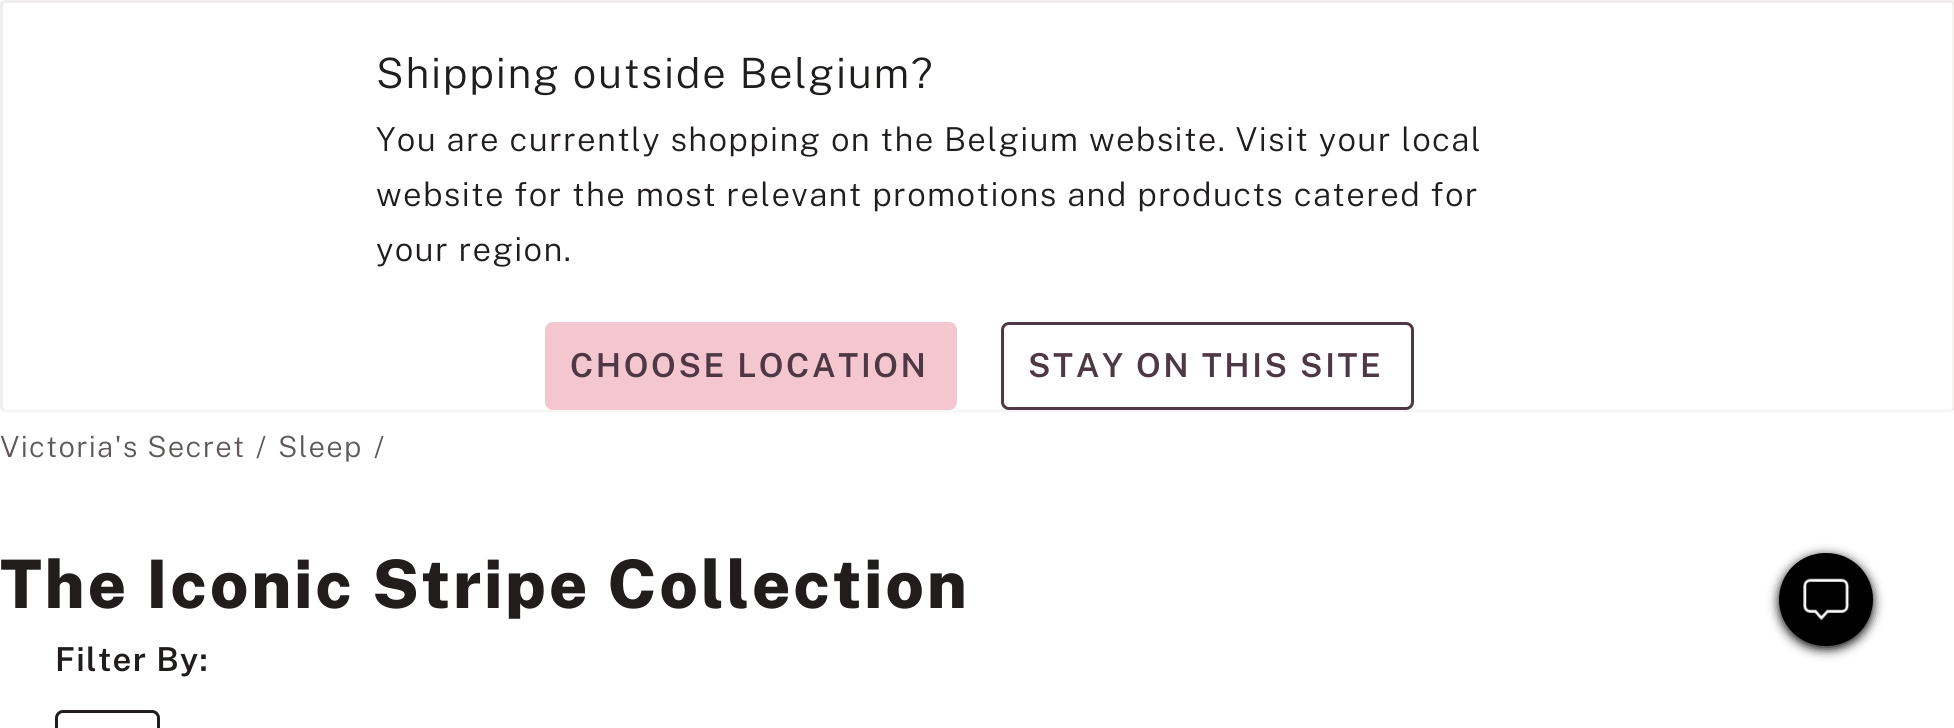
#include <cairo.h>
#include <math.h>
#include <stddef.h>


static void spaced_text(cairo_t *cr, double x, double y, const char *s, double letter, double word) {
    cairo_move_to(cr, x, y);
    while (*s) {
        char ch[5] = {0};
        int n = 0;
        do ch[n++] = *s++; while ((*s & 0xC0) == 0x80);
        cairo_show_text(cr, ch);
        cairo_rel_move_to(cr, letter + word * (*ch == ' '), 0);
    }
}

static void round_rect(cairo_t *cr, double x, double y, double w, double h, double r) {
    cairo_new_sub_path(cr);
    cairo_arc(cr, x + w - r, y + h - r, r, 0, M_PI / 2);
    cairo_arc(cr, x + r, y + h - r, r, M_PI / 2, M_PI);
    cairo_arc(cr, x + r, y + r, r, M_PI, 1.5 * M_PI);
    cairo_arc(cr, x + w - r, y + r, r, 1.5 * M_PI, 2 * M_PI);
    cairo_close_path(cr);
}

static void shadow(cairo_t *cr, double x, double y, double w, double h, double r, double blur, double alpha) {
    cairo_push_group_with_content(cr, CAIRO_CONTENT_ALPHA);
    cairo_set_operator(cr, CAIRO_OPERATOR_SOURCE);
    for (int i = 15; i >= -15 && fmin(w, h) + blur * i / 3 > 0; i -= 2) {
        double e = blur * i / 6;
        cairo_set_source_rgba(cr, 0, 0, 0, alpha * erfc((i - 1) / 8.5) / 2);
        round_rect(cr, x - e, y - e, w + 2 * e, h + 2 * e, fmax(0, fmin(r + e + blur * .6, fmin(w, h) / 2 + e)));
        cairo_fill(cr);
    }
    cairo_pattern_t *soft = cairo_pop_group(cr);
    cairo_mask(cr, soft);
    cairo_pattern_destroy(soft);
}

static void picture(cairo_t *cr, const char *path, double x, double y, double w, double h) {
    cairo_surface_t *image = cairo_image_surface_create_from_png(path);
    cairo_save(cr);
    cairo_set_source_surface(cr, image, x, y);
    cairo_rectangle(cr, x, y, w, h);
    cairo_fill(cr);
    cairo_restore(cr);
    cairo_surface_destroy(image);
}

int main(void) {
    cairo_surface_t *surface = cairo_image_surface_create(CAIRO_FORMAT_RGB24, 1954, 728);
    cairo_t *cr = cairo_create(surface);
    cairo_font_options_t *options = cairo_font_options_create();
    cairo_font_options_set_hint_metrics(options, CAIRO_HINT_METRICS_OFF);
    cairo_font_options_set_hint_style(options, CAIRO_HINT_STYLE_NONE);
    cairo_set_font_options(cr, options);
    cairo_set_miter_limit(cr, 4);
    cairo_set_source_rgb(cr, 1, 1, 1);
    cairo_paint(cr);
    cairo_set_source_rgb(cr, 0.976, 0.973, 0.976);
    cairo_rectangle(cr, 0, 0, 1954, 6);
    cairo_fill(cr);
    cairo_set_source_rgb(cr, 1, 1, 1);
    round_rect(cr, 0, 0, 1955, 413, 6);
    cairo_fill(cr);
    cairo_new_path(cr);
    cairo_move_to(cr, 1952.5, 410);
    cairo_line_to(cr, 1950, 411);
    cairo_line_to(cr, 5.5, 411);
    cairo_line_to(cr, 2.5, 410);
    cairo_set_source_rgb(cr, 0.961, 0.961, 0.965);
    cairo_set_line_width(cr, 2.8);
    cairo_stroke(cr);
    cairo_new_path(cr);
    cairo_move_to(cr, 2.5, 410);
    cairo_line_to(cr, 1.5, 407.5);
    cairo_line_to(cr, 1.5, 5.5);
    cairo_curve_to(cr, 1.5, 3.5, 3.5, 1.5, 5.5, 1.5);
    cairo_line_to(cr, 1950, 1.5);
    cairo_curve_to(cr, 1952, 1.5, 1954, 3.5, 1954, 5.5);
    cairo_line_to(cr, 1954, 407.5);
    cairo_line_to(cr, 1952.5, 410);
    cairo_set_source_rgb(cr, 0.937, 0.925, 0.918);
    cairo_stroke(cr);
    cairo_select_font_face(cr, "Public Sans Light", CAIRO_FONT_SLANT_NORMAL, CAIRO_FONT_WEIGHT_NORMAL);
    cairo_set_font_size(cr, 41.75);
    cairo_set_source_rgb(cr, 0.133, 0.114, 0.114);
    spaced_text(cr, 376, 88, "Shipping outside Belgium?", 1.7, 0);
    cairo_set_font_size(cr, 33);
    spaced_text(cr, 376, 151, "You are currently shopping on the Belgium website. Visit your local", 1.32, 0);
    spaced_text(cr, 376, 206, "website for the most relevant promotions and products catered for", 1.32, 0);
    spaced_text(cr, 376, 261, "your region.", 1.32, 0);
    cairo_set_source_rgb(cr, 0.957, 0.776, 0.812);
    round_rect(cr, 546.5, 323.5, 409, 85, 6.5);
    cairo_fill_preserve(cr);
    cairo_set_line_width(cr, 3);
    cairo_stroke(cr);
    cairo_select_font_face(cr, "Public Sans SemiBold", CAIRO_FONT_SLANT_NORMAL, CAIRO_FONT_WEIGHT_NORMAL);
    cairo_set_source_rgb(cr, 0.306, 0.22, 0.267);
    spaced_text(cr, 570, 377, "CHOOSE LOCATION", 2.6, 0);
    cairo_set_source_rgb(cr, 1, 1, 1);
    round_rect(cr, 1002.5, 323.5, 410, 85, 6.5);
    cairo_fill_preserve(cr);
    cairo_set_source_rgb(cr, 0.306, 0.22, 0.267);
    cairo_stroke(cr);
    spaced_text(cr, 1028, 377, "STAY ON THIS SITE", 2.6, 0);
    cairo_select_font_face(cr, "Public Sans Light", CAIRO_FONT_SLANT_NORMAL, CAIRO_FONT_WEIGHT_NORMAL);
    cairo_set_font_size(cr, 29.25);
    cairo_set_source_rgb(cr, 0.376, 0.345, 0.345);
    spaced_text(cr, 0, 457, "Victoria's Secret", 1.25, 0);
    spaced_text(cr, 256, 457, "/", 1.25, 0);
    spaced_text(cr, 278, 457, "Sleep", 1.25, 0);
    spaced_text(cr, 374, 457, "/", 1.25, 0);
    cairo_select_font_face(cr, "Public Sans ExtraBold", CAIRO_FONT_SLANT_NORMAL, CAIRO_FONT_WEIGHT_NORMAL);
    cairo_set_font_size(cr, 66.9);
    cairo_set_source_rgb(cr, 0.133, 0.114, 0.114);
    spaced_text(cr, 0, 608, "The Iconic Stripe Collection", 2.7, 0);
    cairo_set_source_rgb(cr, 0, 0, 0);
    shadow(cr, 1779, 556, 94, 93, 46.5, 5.5, 1);
    cairo_set_source_rgb(cr, 0, 0, 0);
    round_rect(cr, 1779, 553, 94, 93, 46.5);
    cairo_fill(cr);
    picture(cr, "img1.png", 1803, 578, 47, 43);
    cairo_select_font_face(cr, "Public Sans SemiBold", CAIRO_FONT_SLANT_NORMAL, CAIRO_FONT_WEIGHT_NORMAL);
    cairo_set_font_size(cr, 33);
    cairo_set_source_rgb(cr, 0.133, 0.114, 0.114);
    spaced_text(cr, 55, 671, "Filter By:", 1.32, 0);
    round_rect(cr, 56.5, 711.5, 102, 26, 6.5);
    cairo_stroke(cr);
    cairo_surface_write_to_png(surface, "page.png");
    cairo_font_options_destroy(options);
    cairo_destroy(cr);
    cairo_surface_destroy(surface);
    return 0;
}
